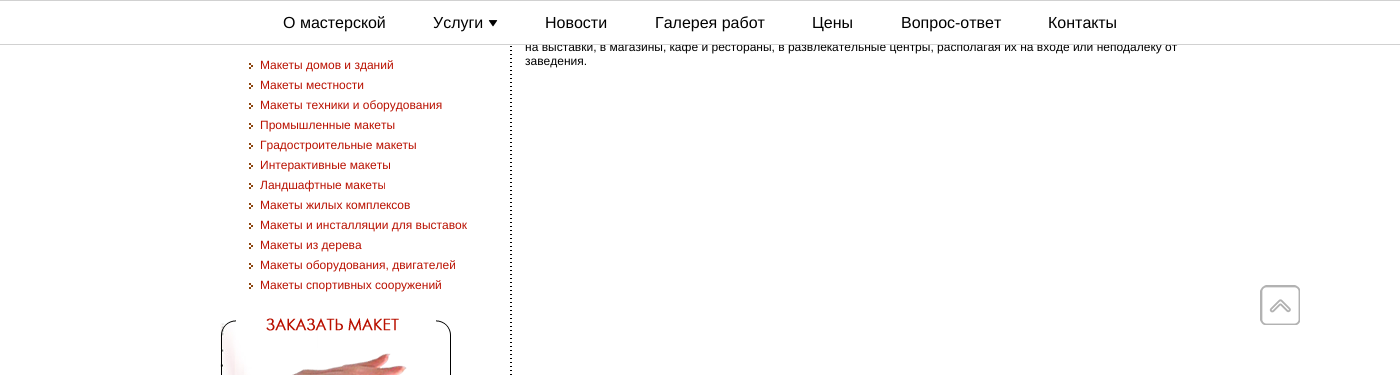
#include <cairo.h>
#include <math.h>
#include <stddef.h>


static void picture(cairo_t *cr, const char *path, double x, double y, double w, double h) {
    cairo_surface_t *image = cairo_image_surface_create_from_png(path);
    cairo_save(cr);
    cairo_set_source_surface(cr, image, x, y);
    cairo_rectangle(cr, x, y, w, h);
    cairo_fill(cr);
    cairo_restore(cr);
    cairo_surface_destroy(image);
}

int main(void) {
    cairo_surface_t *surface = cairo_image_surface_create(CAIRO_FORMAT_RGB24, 1400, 375);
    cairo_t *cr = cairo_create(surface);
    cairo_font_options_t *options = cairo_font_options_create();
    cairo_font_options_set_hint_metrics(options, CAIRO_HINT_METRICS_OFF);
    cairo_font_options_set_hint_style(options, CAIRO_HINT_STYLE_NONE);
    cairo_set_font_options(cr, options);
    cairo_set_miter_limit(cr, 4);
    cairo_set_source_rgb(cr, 1, 1, 1);
    cairo_paint(cr);
    cairo_select_font_face(cr, "Liberation Sans", CAIRO_FONT_SLANT_NORMAL, CAIRO_FONT_WEIGHT_NORMAL);
    cairo_set_font_size(cr, 12);
    cairo_set_source_rgb(cr, 0, 0, 0);
    cairo_move_to(cr, 525, 51);
    cairo_show_text(cr, "на выставки, в магазины, кафе и рестораны, в развлекательные центры, располагая их на входе или неподалеку от");
    cairo_set_source_rgb(cr, 1, 1, 1);
    cairo_rectangle(cr, 685, 42, 2, 2);
    cairo_fill(cr);
    cairo_set_source_rgb(cr, 0.82, 0.82, 0.82);
    cairo_rectangle(cr, 0, 0, 1400, 1);
    cairo_fill(cr);
    cairo_rectangle(cr, 0, 44, 1400, 1);
    cairo_fill(cr);
    cairo_set_font_size(cr, 16);
    cairo_set_source_rgb(cr, 0, 0, 0);
    cairo_move_to(cr, 283, 28);
    cairo_show_text(cr, "О мастерской");
    cairo_move_to(cr, 433, 28);
    cairo_show_text(cr, "Услуги");
    picture(cr, "img1.png", 488, 20, 10, 7);
    cairo_move_to(cr, 545, 28);
    cairo_show_text(cr, "Новости");
    cairo_move_to(cr, 655, 28);
    cairo_show_text(cr, "Галерея работ");
    cairo_move_to(cr, 812, 28);
    cairo_show_text(cr, "Цены");
    cairo_move_to(cr, 901, 28);
    cairo_show_text(cr, "Вопрос-ответ");
    cairo_move_to(cr, 1048, 28);
    cairo_show_text(cr, "Контакты");
    picture(cr, "img2.png", 510, 45, 2, 330);
    cairo_set_font_size(cr, 12);
    cairo_move_to(cr, 525, 65);
    cairo_show_text(cr, "заведения.");
    picture(cr, "img3.png", 249, 63, 4, 6);
    cairo_set_source_rgb(cr, 0.725, 0.063, 0);
    cairo_move_to(cr, 260, 69);
    cairo_show_text(cr, "Макеты домов и зданий");
    picture(cr, "img3.png", 249, 83, 4, 6);
    cairo_move_to(cr, 260, 89);
    cairo_show_text(cr, "Макеты местности");
    picture(cr, "img3.png", 249, 103, 4, 6);
    cairo_move_to(cr, 260, 109);
    cairo_show_text(cr, "Макеты техники и оборудования");
    picture(cr, "img3.png", 249, 123, 4, 6);
    cairo_move_to(cr, 260, 129);
    cairo_show_text(cr, "Промышленные макеты");
    picture(cr, "img3.png", 249, 143, 4, 6);
    cairo_move_to(cr, 260, 149);
    cairo_show_text(cr, "Градостроительные макеты");
    picture(cr, "img3.png", 249, 163, 4, 6);
    cairo_move_to(cr, 260, 169);
    cairo_show_text(cr, "Интерактивные макеты");
    picture(cr, "img3.png", 249, 183, 4, 6);
    cairo_move_to(cr, 260, 189);
    cairo_show_text(cr, "Ландшафтные макеты");
    picture(cr, "img3.png", 249, 203, 4, 6);
    cairo_move_to(cr, 260, 209);
    cairo_show_text(cr, "Макеты жилых комплексов");
    picture(cr, "img3.png", 249, 223, 4, 6);
    cairo_move_to(cr, 260, 229);
    cairo_show_text(cr, "Макеты и инсталляции для выставок");
    picture(cr, "img3.png", 249, 243, 4, 6);
    cairo_move_to(cr, 260, 249);
    cairo_show_text(cr, "Макеты из дерева");
    picture(cr, "img3.png", 249, 263, 4, 6);
    cairo_move_to(cr, 260, 269);
    cairo_show_text(cr, "Макеты оборудования, двигателей");
    picture(cr, "img3.png", 249, 283, 4, 6);
    cairo_move_to(cr, 260, 289);
    cairo_show_text(cr, "Макеты спортивных сооружений");
    picture(cr, "img4.png", 220, 323, 98, 52);
    picture(cr, "img5.png", 221, 318, 230, 57);
    picture(cr, "img6.png", 1260, 285, 40, 40);
    cairo_surface_write_to_png(surface, "page.png");
    cairo_font_options_destroy(options);
    cairo_destroy(cr);
    cairo_surface_destroy(surface);
    return 0;
}
